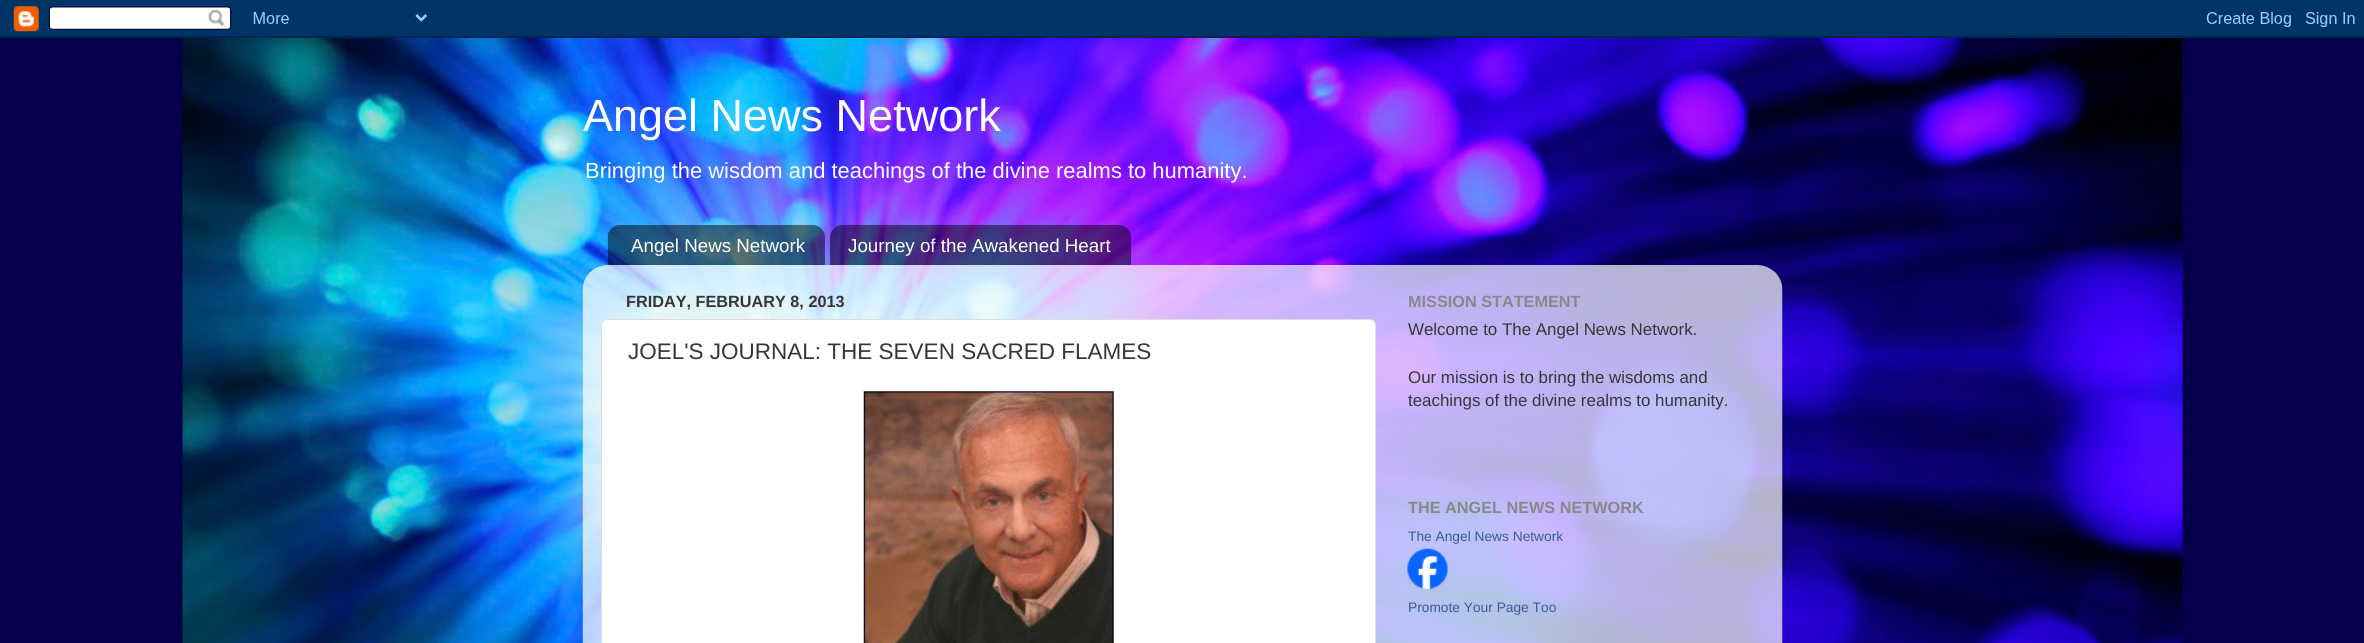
#include <cairo.h>
#include <math.h>
#include <stddef.h>


static void round_rect(cairo_t *cr, double x, double y, double w, double h, double r) {
    cairo_new_sub_path(cr);
    cairo_arc(cr, x + w - r, y + h - r, r, 0, M_PI / 2);
    cairo_arc(cr, x + r, y + h - r, r, M_PI / 2, M_PI);
    cairo_arc(cr, x + r, y + r, r, M_PI, 1.5 * M_PI);
    cairo_arc(cr, x + w - r, y + r, r, 1.5 * M_PI, 2 * M_PI);
    cairo_close_path(cr);
}

static void shadow(cairo_t *cr, double x, double y, double w, double h, double r, double blur, double alpha) {
    cairo_push_group_with_content(cr, CAIRO_CONTENT_ALPHA);
    cairo_set_operator(cr, CAIRO_OPERATOR_SOURCE);
    for (int i = 15; i >= -15 && fmin(w, h) + blur * i / 3 > 0; i -= 2) {
        double e = blur * i / 6;
        cairo_set_source_rgba(cr, 0, 0, 0, alpha * erfc((i - 1) / 8.5) / 2);
        round_rect(cr, x - e, y - e, w + 2 * e, h + 2 * e, fmax(0, fmin(r + e + blur * .6, fmin(w, h) / 2 + e)));
        cairo_fill(cr);
    }
    cairo_pattern_t *soft = cairo_pop_group(cr);
    cairo_mask(cr, soft);
    cairo_pattern_destroy(soft);
}

static void picture(cairo_t *cr, const char *path, double x, double y, double w, double h) {
    cairo_surface_t *image = cairo_image_surface_create_from_png(path);
    cairo_save(cr);
    cairo_set_source_surface(cr, image, x, y);
    cairo_rectangle(cr, x, y, w, h);
    cairo_fill(cr);
    cairo_restore(cr);
    cairo_surface_destroy(image);
}

int main(void) {
    cairo_surface_t *surface = cairo_image_surface_create(CAIRO_FORMAT_RGB24, 2364, 643);
    cairo_t *cr = cairo_create(surface);
    cairo_font_options_t *options = cairo_font_options_create();
    cairo_font_options_set_hint_metrics(options, CAIRO_HINT_METRICS_OFF);
    cairo_font_options_set_hint_style(options, CAIRO_HINT_STYLE_NONE);
    cairo_set_font_options(cr, options);
    cairo_set_miter_limit(cr, 4);
    cairo_set_source_rgb(cr, 0.024, 0, 0.298);
    cairo_paint(cr);
    picture(cr, "img1.png", 182, 36, 2001, 607);
    picture(cr, "img2.png", 0, 0, 2364, 38);
    cairo_select_font_face(cr, "Liberation Sans", CAIRO_FONT_SLANT_NORMAL, CAIRO_FONT_WEIGHT_NORMAL);
    cairo_set_font_size(cr, 45);
    cairo_set_source_rgb(cr, 1, 1, 1);
    cairo_move_to(cr, 583, 131);
    cairo_show_text(cr, "Angel News Network");
    cairo_set_font_size(cr, 21.95);
    cairo_move_to(cr, 585, 178);
    cairo_show_text(cr, "Bringing the wisdom and teachings of the divine realms to humanity.");
    picture(cr, "img3.png", 607, 225, 218, 40);
    cairo_set_font_size(cr, 18.75);
    cairo_move_to(cr, 631, 252);
    cairo_show_text(cr, "Angel News Network");
    picture(cr, "img4.png", 830, 225, 302, 40);
    cairo_move_to(cr, 848, 252);
    cairo_show_text(cr, "Journey of the Awakened Heart");
    cairo_save(cr);
    cairo_set_fill_rule(cr, CAIRO_FILL_RULE_EVEN_ODD);
    cairo_new_path(cr);
    cairo_move_to(cr, 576, 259);
    cairo_line_to(cr, 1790, 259);
    cairo_line_to(cr, 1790, 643);
    cairo_line_to(cr, 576, 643);
    cairo_close_path(cr);
    cairo_move_to(cr, 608, 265);
    cairo_line_to(cr, 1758, 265);
    cairo_curve_to(cr, 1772, 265, 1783, 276, 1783, 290);
    cairo_line_to(cr, 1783, 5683);
    cairo_line_to(cr, 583, 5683);
    cairo_line_to(cr, 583, 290);
    cairo_curve_to(cr, 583, 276, 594, 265, 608, 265);
    cairo_close_path(cr);
    cairo_clip(cr);
    cairo_set_source_rgb(cr, 0, 0, 0);
    shadow(cr, 583, 266, 1200, 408, 25, 2, 0.15);
    cairo_restore(cr);
    picture(cr, "img5.png", 582, 265, 1201, 378);
    cairo_select_font_face(cr, "Liberation Sans", CAIRO_FONT_SLANT_NORMAL, CAIRO_FONT_WEIGHT_BOLD);
    cairo_set_font_size(cr, 16.25);
    cairo_set_source_rgb(cr, 0.212, 0.212, 0.212);
    cairo_move_to(cr, 626, 307);
    cairo_show_text(cr, "FRIDAY, FEBRUARY 8, 2013");
    cairo_set_source_rgb(cr, 1, 1, 1);
    round_rect(cr, 601.5, 319.5, 774, 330, 5.5);
    cairo_fill_preserve(cr);
    cairo_set_source_rgb(cr, 0.867, 0.867, 0.867);
    cairo_set_line_width(cr, 1);
    cairo_stroke(cr);
    cairo_select_font_face(cr, "Liberation Sans", CAIRO_FONT_SLANT_NORMAL, CAIRO_FONT_WEIGHT_NORMAL);
    cairo_set_font_size(cr, 22.5);
    cairo_set_source_rgb(cr, 0.212, 0.212, 0.212);
    cairo_move_to(cr, 628, 359);
    cairo_show_text(cr, "JOEL'S JOURNAL: THE SEVEN SACRED FLAMES");
    picture(cr, "img6.png", 863, 391, 251, 252);
    cairo_select_font_face(cr, "Liberation Sans", CAIRO_FONT_SLANT_NORMAL, CAIRO_FONT_WEIGHT_BOLD);
    cairo_set_font_size(cr, 16.25);
    cairo_set_source_rgb(cr, 0.533, 0.533, 0.533);
    cairo_move_to(cr, 1408, 307);
    cairo_show_text(cr, "MISSION STATEMENT");
    cairo_select_font_face(cr, "Liberation Sans", CAIRO_FONT_SLANT_NORMAL, CAIRO_FONT_WEIGHT_NORMAL);
    cairo_set_font_size(cr, 16.9);
    cairo_set_source_rgb(cr, 0.212, 0.212, 0.212);
    cairo_move_to(cr, 1408, 335);
    cairo_show_text(cr, "Welcome to The Angel News Network.");
    cairo_move_to(cr, 1408, 383);
    cairo_show_text(cr, "Our mission is to bring the wisdoms and");
    cairo_move_to(cr, 1408, 406);
    cairo_show_text(cr, "teachings of the divine realms to humanity.");
    cairo_select_font_face(cr, "Liberation Sans", CAIRO_FONT_SLANT_NORMAL, CAIRO_FONT_WEIGHT_BOLD);
    cairo_set_font_size(cr, 16.25);
    cairo_set_source_rgb(cr, 0.533, 0.533, 0.533);
    cairo_move_to(cr, 1408, 513);
    cairo_show_text(cr, "THE ANGEL NEWS NETWORK");
    cairo_select_font_face(cr, "Liberation Sans", CAIRO_FONT_SLANT_NORMAL, CAIRO_FONT_WEIGHT_NORMAL);
    cairo_set_font_size(cr, 13.75);
    cairo_set_source_rgb(cr, 0.231, 0.349, 0.596);
    cairo_move_to(cr, 1408, 541);
    cairo_show_text(cr, "The Angel News Network");
    picture(cr, "img7.png", 1407, 548, 41, 41);
    cairo_move_to(cr, 1408, 612);
    cairo_show_text(cr, "Promote Your Page Too");
    cairo_surface_write_to_png(surface, "page.png");
    cairo_font_options_destroy(options);
    cairo_destroy(cr);
    cairo_surface_destroy(surface);
    return 0;
}
